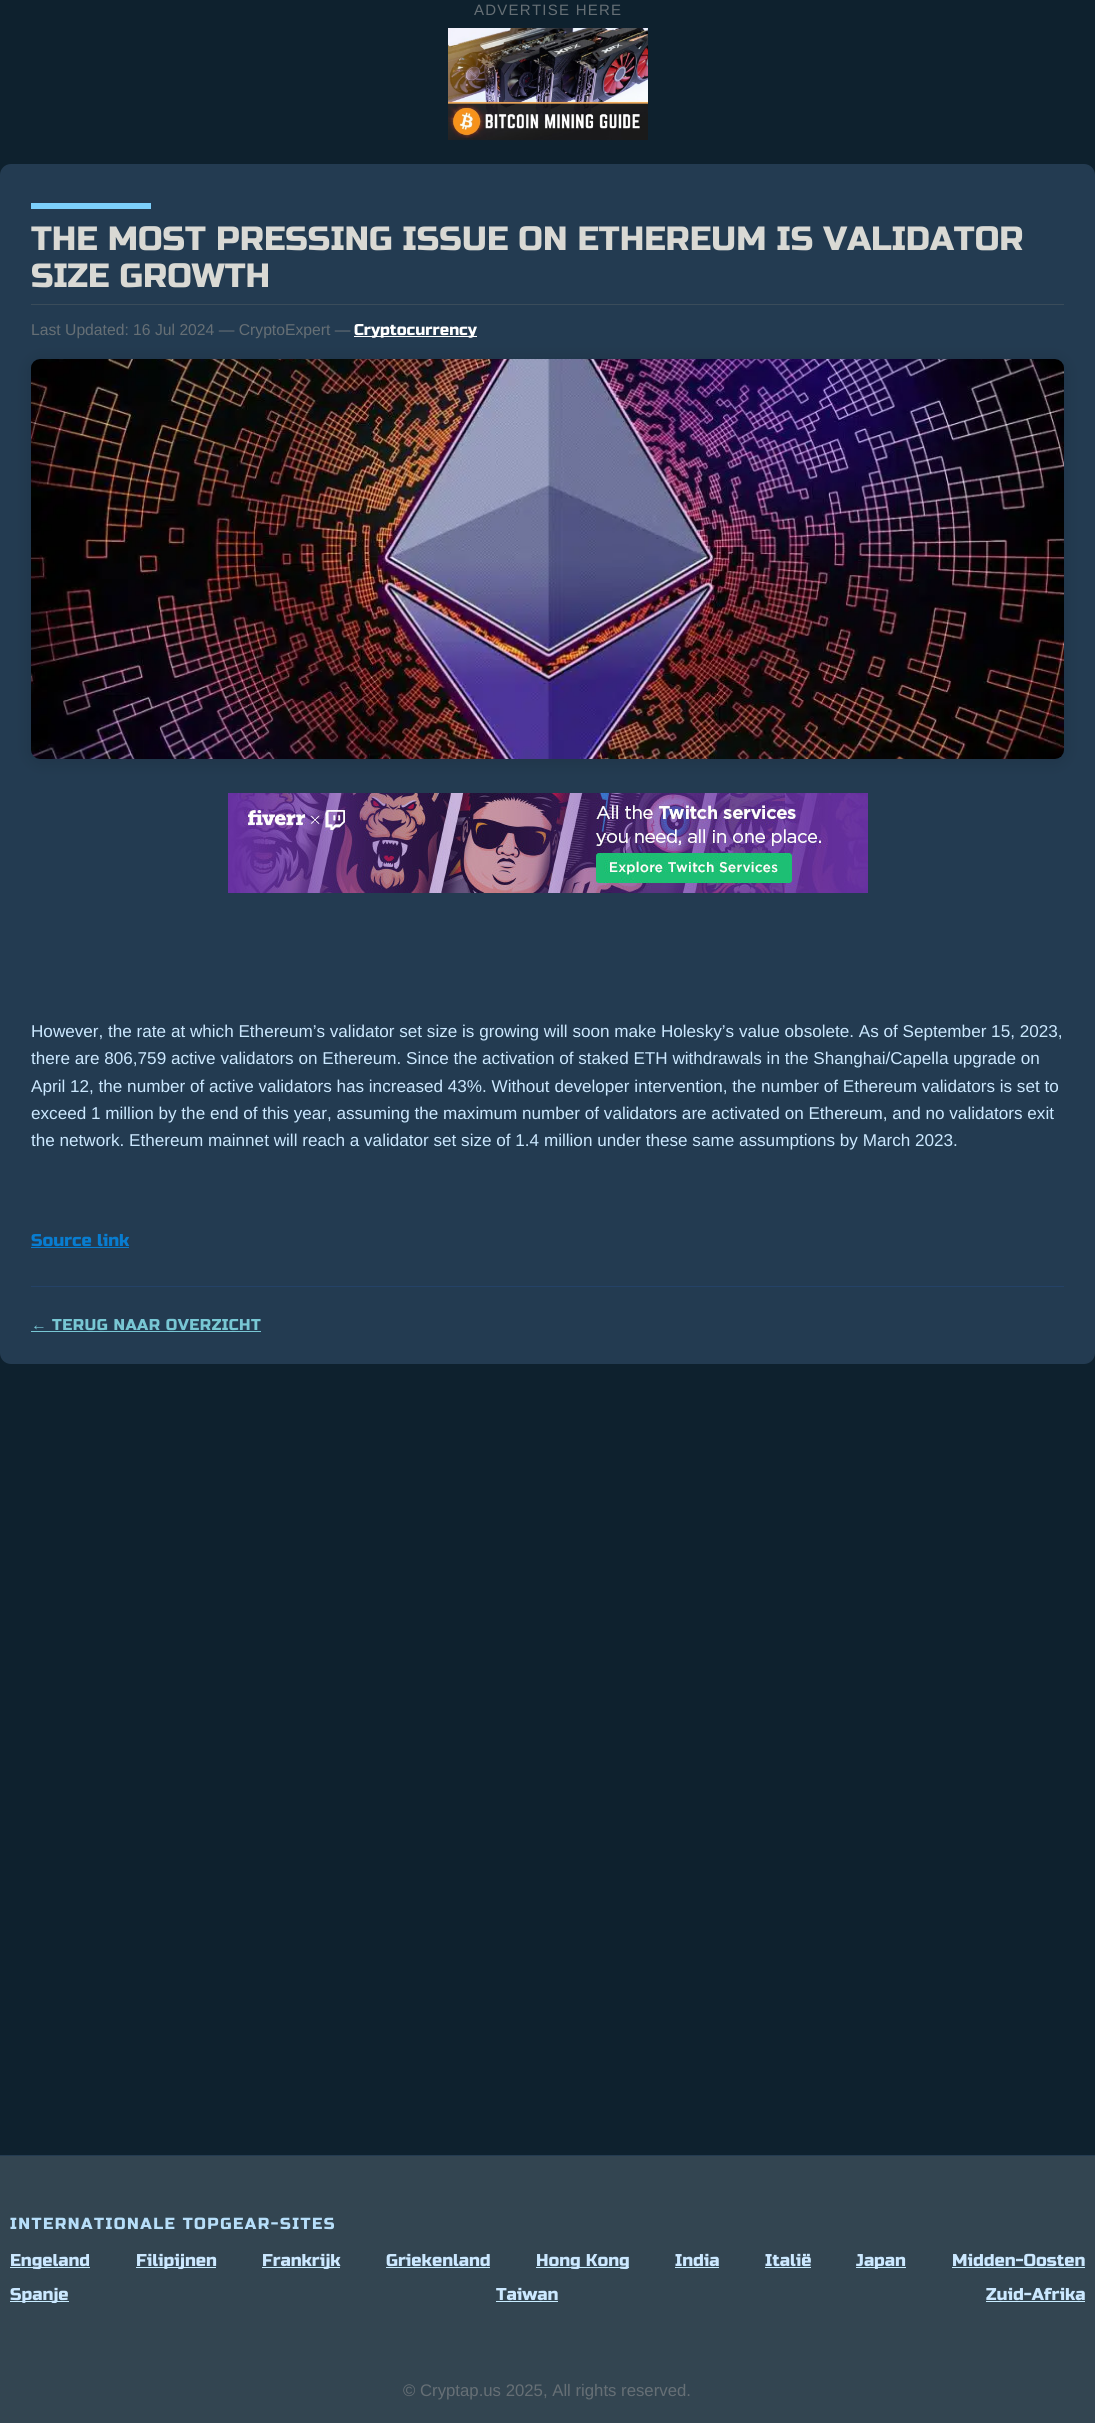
#include <cairo.h>
#include <math.h>
#include <stddef.h>


static void spaced_text(cairo_t *cr, double x, double y, const char *s, double letter, double word) {
    cairo_move_to(cr, x, y);
    while (*s) {
        char ch[5] = {0};
        int n = 0;
        do ch[n++] = *s++; while ((*s & 0xC0) == 0x80);
        cairo_show_text(cr, ch);
        cairo_rel_move_to(cr, letter + word * (*ch == ' '), 0);
    }
}

static void round_rect(cairo_t *cr, double x, double y, double w, double h, double r) {
    cairo_new_sub_path(cr);
    cairo_arc(cr, x + w - r, y + h - r, r, 0, M_PI / 2);
    cairo_arc(cr, x + r, y + h - r, r, M_PI / 2, M_PI);
    cairo_arc(cr, x + r, y + r, r, M_PI, 1.5 * M_PI);
    cairo_arc(cr, x + w - r, y + r, r, 1.5 * M_PI, 2 * M_PI);
    cairo_close_path(cr);
}

static void shadow(cairo_t *cr, double x, double y, double w, double h, double r, double blur, double alpha) {
    cairo_push_group_with_content(cr, CAIRO_CONTENT_ALPHA);
    cairo_set_operator(cr, CAIRO_OPERATOR_SOURCE);
    for (int i = 15; i >= -15 && fmin(w, h) + blur * i / 3 > 0; i -= 2) {
        double e = blur * i / 6;
        cairo_set_source_rgba(cr, 0, 0, 0, alpha * erfc((i - 1) / 8.5) / 2);
        round_rect(cr, x - e, y - e, w + 2 * e, h + 2 * e, fmax(0, fmin(r + e + blur * .6, fmin(w, h) / 2 + e)));
        cairo_fill(cr);
    }
    cairo_pattern_t *soft = cairo_pop_group(cr);
    cairo_mask(cr, soft);
    cairo_pattern_destroy(soft);
}

static void picture(cairo_t *cr, const char *path, double x, double y, double w, double h) {
    cairo_surface_t *image = cairo_image_surface_create_from_png(path);
    cairo_save(cr);
    cairo_set_source_surface(cr, image, x, y);
    cairo_rectangle(cr, x, y, w, h);
    cairo_fill(cr);
    cairo_restore(cr);
    cairo_surface_destroy(image);
}

int main(void) {
    cairo_surface_t *surface = cairo_image_surface_create(CAIRO_FORMAT_RGB24, 1095, 2423);
    cairo_t *cr = cairo_create(surface);
    cairo_font_options_t *options = cairo_font_options_create();
    cairo_font_options_set_hint_metrics(options, CAIRO_HINT_METRICS_OFF);
    cairo_font_options_set_hint_style(options, CAIRO_HINT_STYLE_NONE);
    cairo_set_font_options(cr, options);
    cairo_set_miter_limit(cr, 4);
    cairo_set_source_rgb(cr, 0.055, 0.129, 0.18);
    cairo_paint(cr);
    cairo_select_font_face(cr, "Liberation Sans", CAIRO_FONT_SLANT_NORMAL, CAIRO_FONT_WEIGHT_NORMAL);
    cairo_set_font_size(cr, 15);
    cairo_set_source_rgb(cr, 0.4, 0.435, 0.459);
    spaced_text(cr, 474, 15, "ADVERTISE HERE", 1.25, 0);
    picture(cr, "img1.png", 448, 28, 200, 112);
    cairo_set_source_rgb(cr, 0.137, 0.231, 0.318);
    round_rect(cr, 0, 164, 1095, 1200, 11);
    cairo_fill(cr);
    cairo_set_source_rgb(cr, 0.486, 0.816, 0.988);
    cairo_rectangle(cr, 31, 203, 120, 6);
    cairo_fill(cr);
    cairo_set_source_rgb(cr, 0.227, 0.298, 0.353);
    cairo_rectangle(cr, 31, 304, 1033, 1);
    cairo_fill(cr);
    cairo_select_font_face(cr, "Russo One", CAIRO_FONT_SLANT_NORMAL, CAIRO_FONT_WEIGHT_NORMAL);
    cairo_set_font_size(cr, 33.6);
    cairo_set_source_rgb(cr, 0.851, 0.851, 0.831);
    cairo_move_to(cr, 31, 250);
    cairo_show_text(cr, "THE MOST PRESSING ISSUE ON ETHEREUM IS VALIDATOR");
    cairo_move_to(cr, 31, 287);
    cairo_show_text(cr, "SIZE GROWTH");
    cairo_select_font_face(cr, "Liberation Sans", CAIRO_FONT_SLANT_NORMAL, CAIRO_FONT_WEIGHT_NORMAL);
    cairo_set_font_size(cr, 15.7);
    cairo_set_source_rgb(cr, 0.4, 0.435, 0.459);
    cairo_move_to(cr, 31, 335);
    cairo_show_text(cr, "Last Updated: 16 Jul 2024 — CryptoExpert —");
    cairo_set_source_rgb(cr, 1, 1, 1);
    cairo_rectangle(cr, 354, 336, 123, 1);
    cairo_fill(cr);
    cairo_select_font_face(cr, "Russo One", CAIRO_FONT_SLANT_NORMAL, CAIRO_FONT_WEIGHT_NORMAL);
    cairo_move_to(cr, 354, 335);
    cairo_show_text(cr, "Cryptocurrency");
    cairo_set_source_rgb(cr, 0, 0, 0);
    shadow(cr, 31, 361, 1033, 400, 9, 9, 0.13);
    picture(cr, "img2.png", 31, 359, 1033, 400);
    picture(cr, "img3.png", 228, 793, 640, 100);
    cairo_select_font_face(cr, "Liberation Sans", CAIRO_FONT_SLANT_NORMAL, CAIRO_FONT_WEIGHT_NORMAL);
    cairo_set_font_size(cr, 17.12);
    cairo_set_source_rgb(cr, 0.796, 0.91, 1);
    cairo_move_to(cr, 31, 1037);
    cairo_show_text(cr, "However, the rate at which Ethereum’s validator set size is growing will soon make Holesky’s value obsolete. As of September 15, 2023,");
    cairo_move_to(cr, 31, 1064);
    cairo_show_text(cr, "there are 806,759 active validators on Ethereum. Since the activation of staked ETH withdrawals in the Shanghai/Capella upgrade on");
    cairo_move_to(cr, 31, 1092);
    cairo_show_text(cr, "April 12, the number of active validators has increased 43%. Without developer intervention, the number of Ethereum validators is set to");
    cairo_move_to(cr, 31, 1119);
    cairo_show_text(cr, "exceed 1 million by the end of this year, assuming the maximum number of validators are activated on Ethereum, and no validators exit");
    cairo_move_to(cr, 31, 1146);
    cairo_show_text(cr, "the network. Ethereum mainnet will reach a validator set size of 1.4 million under these same assumptions by March 2023.");
    cairo_select_font_face(cr, "Russo One", CAIRO_FONT_SLANT_NORMAL, CAIRO_FONT_WEIGHT_NORMAL);
    cairo_set_source_rgb(cr, 0.035, 0.49, 0.82);
    cairo_move_to(cr, 31, 1246);
    cairo_show_text(cr, "Source link");
    cairo_rectangle(cr, 31, 1247, 98, 1);
    cairo_fill(cr);
    cairo_set_source_rgb(cr, 0.141, 0.259, 0.404);
    cairo_rectangle(cr, 31, 1286, 1033, 1);
    cairo_fill(cr);
    cairo_select_font_face(cr, "Liberation Sans", CAIRO_FONT_SLANT_NORMAL, CAIRO_FONT_WEIGHT_NORMAL);
    cairo_set_font_size(cr, 15.7);
    cairo_set_source_rgb(cr, 0.471, 0.78, 0.831);
    spaced_text(cr, 31, 1330, "←", 0.5, 0);
    cairo_rectangle(cr, 31, 1331, 230, 1);
    cairo_fill(cr);
    cairo_select_font_face(cr, "Russo One", CAIRO_FONT_SLANT_NORMAL, CAIRO_FONT_WEIGHT_NORMAL);
    spaced_text(cr, 52, 1330, "TERUG NAAR OVERZICHT", 0.5, 0);
    cairo_set_source_rgb(cr, 0.2, 0.271, 0.318);
    cairo_rectangle(cr, 0, 2156, 1095, 267);
    cairo_fill(cr);
    cairo_set_source_rgb(cr, 0.137, 0.231, 0.318);
    cairo_rectangle(cr, 0, 2155, 1095, 1);
    cairo_fill(cr);
    cairo_set_font_size(cr, 16.1);
    cairo_set_source_rgb(cr, 0.718, 0.875, 0.98);
    spaced_text(cr, 10, 2229, "INTERNATIONALE TOPGEAR-SITES", 1.5, 0);
    cairo_set_source_rgb(cr, 0.78, 0.922, 1);
    cairo_rectangle(cr, 10, 2267, 80, 1);
    cairo_fill(cr);
    cairo_set_font_size(cr, 17.12);
    cairo_set_source_rgb(cr, 0.796, 0.91, 1);
    cairo_move_to(cr, 10, 2266);
    cairo_show_text(cr, "Engeland");
    cairo_set_source_rgb(cr, 0.78, 0.922, 1);
    cairo_rectangle(cr, 136, 2267, 80, 1);
    cairo_fill(cr);
    cairo_set_source_rgb(cr, 0.796, 0.91, 1);
    cairo_move_to(cr, 136, 2266);
    cairo_show_text(cr, "Filipijnen");
    cairo_set_source_rgb(cr, 0.78, 0.922, 1);
    cairo_rectangle(cr, 262, 2267, 78, 1);
    cairo_fill(cr);
    cairo_set_source_rgb(cr, 0.796, 0.91, 1);
    cairo_move_to(cr, 262, 2266);
    cairo_show_text(cr, "Frankrijk");
    cairo_move_to(cr, 386, 2266);
    cairo_show_text(cr, "Griekenland");
    cairo_set_source_rgb(cr, 0.78, 0.922, 1);
    cairo_rectangle(cr, 386, 2267, 104, 1);
    cairo_fill(cr);
    cairo_rectangle(cr, 536, 2267, 93, 1);
    cairo_fill(cr);
    cairo_set_source_rgb(cr, 0.796, 0.91, 1);
    cairo_move_to(cr, 536, 2266);
    cairo_show_text(cr, "Hong Kong");
    cairo_move_to(cr, 675, 2266);
    cairo_show_text(cr, "India");
    cairo_set_source_rgb(cr, 0.78, 0.922, 1);
    cairo_rectangle(cr, 675, 2267, 44, 1);
    cairo_fill(cr);
    cairo_set_source_rgb(cr, 0.796, 0.91, 1);
    cairo_move_to(cr, 765, 2266);
    cairo_show_text(cr, "Italië");
    cairo_set_source_rgb(cr, 0.78, 0.922, 1);
    cairo_rectangle(cr, 765, 2267, 46, 1);
    cairo_fill(cr);
    cairo_rectangle(cr, 856, 2267, 50, 1);
    cairo_fill(cr);
    cairo_set_source_rgb(cr, 0.796, 0.91, 1);
    cairo_move_to(cr, 856, 2266);
    cairo_show_text(cr, "Japan");
    cairo_move_to(cr, 952, 2266);
    cairo_show_text(cr, "Midden-Oosten");
    cairo_set_source_rgb(cr, 0.78, 0.922, 1);
    cairo_rectangle(cr, 952, 2267, 133, 1);
    cairo_fill(cr);
    cairo_rectangle(cr, 10, 2301, 59, 1);
    cairo_fill(cr);
    cairo_set_source_rgb(cr, 0.796, 0.91, 1);
    cairo_move_to(cr, 10, 2300);
    cairo_show_text(cr, "Spanje");
    cairo_move_to(cr, 496, 2300);
    cairo_show_text(cr, "Taiwan");
    cairo_set_source_rgb(cr, 0.78, 0.922, 1);
    cairo_rectangle(cr, 496, 2301, 62, 1);
    cairo_fill(cr);
    cairo_set_source_rgb(cr, 0.796, 0.91, 1);
    cairo_move_to(cr, 986, 2300);
    cairo_show_text(cr, "Zuid-Afrika");
    cairo_set_source_rgb(cr, 0.78, 0.922, 1);
    cairo_rectangle(cr, 986, 2301, 99, 1);
    cairo_fill(cr);
    cairo_select_font_face(cr, "Liberation Sans", CAIRO_FONT_SLANT_NORMAL, CAIRO_FONT_WEIGHT_NORMAL);
    cairo_set_font_size(cr, 16.75);
    cairo_set_source_rgb(cr, 0.4, 0.435, 0.459);
    cairo_move_to(cr, 403, 2396);
    cairo_show_text(cr, "© Cryptap.us 2025, All rights reserved.");
    cairo_surface_write_to_png(surface, "page.png");
    cairo_font_options_destroy(options);
    cairo_destroy(cr);
    cairo_surface_destroy(surface);
    return 0;
}
